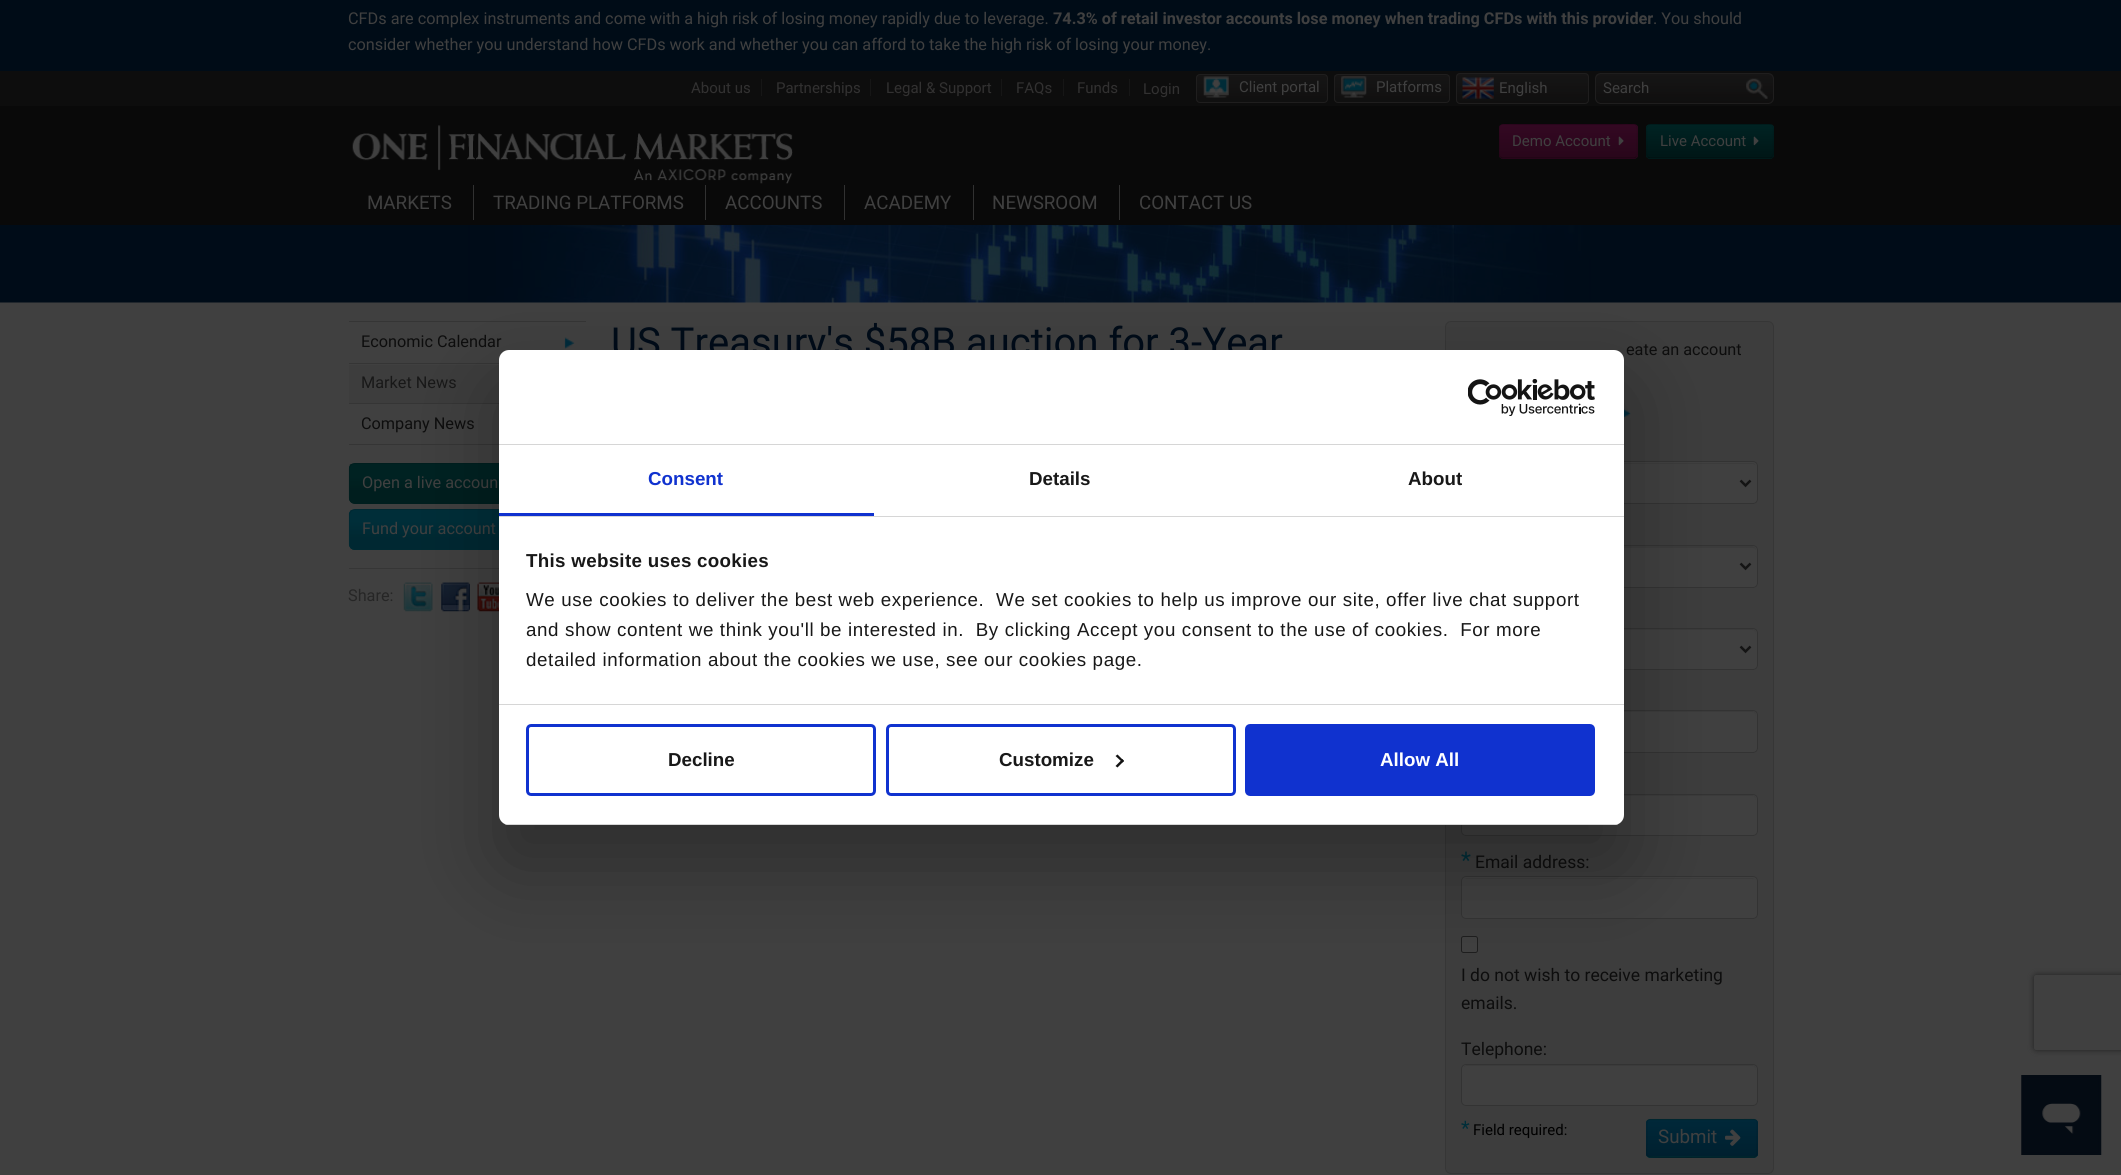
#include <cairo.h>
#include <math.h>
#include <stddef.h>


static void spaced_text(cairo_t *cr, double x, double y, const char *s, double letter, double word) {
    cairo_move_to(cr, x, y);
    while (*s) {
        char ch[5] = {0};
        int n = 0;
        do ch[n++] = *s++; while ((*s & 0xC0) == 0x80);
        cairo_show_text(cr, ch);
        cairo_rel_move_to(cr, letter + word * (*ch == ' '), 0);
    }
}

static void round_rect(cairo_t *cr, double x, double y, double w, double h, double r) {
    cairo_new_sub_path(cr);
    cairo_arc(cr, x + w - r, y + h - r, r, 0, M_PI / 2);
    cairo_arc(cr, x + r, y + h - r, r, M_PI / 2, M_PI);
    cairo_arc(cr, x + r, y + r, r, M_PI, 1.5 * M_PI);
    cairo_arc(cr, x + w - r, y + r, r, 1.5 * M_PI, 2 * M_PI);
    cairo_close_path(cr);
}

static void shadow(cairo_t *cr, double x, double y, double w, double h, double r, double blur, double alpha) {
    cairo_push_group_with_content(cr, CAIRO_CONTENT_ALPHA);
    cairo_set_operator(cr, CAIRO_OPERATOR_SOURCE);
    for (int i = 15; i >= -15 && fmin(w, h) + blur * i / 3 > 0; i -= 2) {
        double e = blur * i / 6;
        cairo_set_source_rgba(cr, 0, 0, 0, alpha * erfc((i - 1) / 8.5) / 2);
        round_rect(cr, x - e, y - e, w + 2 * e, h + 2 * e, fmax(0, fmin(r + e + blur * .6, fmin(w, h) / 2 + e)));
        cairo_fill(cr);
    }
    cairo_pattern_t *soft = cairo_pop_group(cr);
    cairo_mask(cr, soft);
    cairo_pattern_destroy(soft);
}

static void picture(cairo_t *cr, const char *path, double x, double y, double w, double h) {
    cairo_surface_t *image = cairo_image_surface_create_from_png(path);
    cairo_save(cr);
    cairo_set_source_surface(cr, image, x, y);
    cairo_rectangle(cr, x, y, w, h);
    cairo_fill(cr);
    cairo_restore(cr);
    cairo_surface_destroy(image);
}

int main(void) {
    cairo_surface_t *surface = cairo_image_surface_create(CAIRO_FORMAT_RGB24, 2121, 1175);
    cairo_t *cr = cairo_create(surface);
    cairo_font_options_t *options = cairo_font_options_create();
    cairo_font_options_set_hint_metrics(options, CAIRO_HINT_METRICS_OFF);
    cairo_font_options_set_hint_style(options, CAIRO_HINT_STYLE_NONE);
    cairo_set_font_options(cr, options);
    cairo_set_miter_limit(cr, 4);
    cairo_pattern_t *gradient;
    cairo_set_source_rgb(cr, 0.251, 0.251, 0.251);
    cairo_paint(cr);
    cairo_set_source_rgb(cr, 0, 0.047, 0.09);
    cairo_rectangle(cr, 0, 0, 2121, 71);
    cairo_fill(cr);
    cairo_select_font_face(cr, "Roboto", CAIRO_FONT_SLANT_NORMAL, CAIRO_FONT_WEIGHT_NORMAL);
    cairo_set_font_size(cr, 16.25);
    cairo_set_source_rgb(cr, 0.251, 0.251, 0.251);
    cairo_move_to(cr, 348, 24);
    cairo_show_text(cr, "CFDs are complex instruments and come with a high risk of losing money rapidly due to leverage.");
    cairo_select_font_face(cr, "Roboto", CAIRO_FONT_SLANT_NORMAL, CAIRO_FONT_WEIGHT_BOLD);
    cairo_move_to(cr, 1053, 24);
    cairo_show_text(cr, "74.3% of retail investor accounts lose money when trading CFDs with this provider");
    cairo_select_font_face(cr, "Roboto", CAIRO_FONT_SLANT_NORMAL, CAIRO_FONT_WEIGHT_NORMAL);
    cairo_move_to(cr, 1653, 24);
    cairo_show_text(cr, ". You should");
    cairo_move_to(cr, 348, 50);
    cairo_show_text(cr, "consider whether you understand how CFDs work and whether you can afford to take the high risk of losing your money.");
    cairo_set_source_rgb(cr, 0.051, 0.051, 0.051);
    cairo_rectangle(cr, 0, 71, 2121, 35);
    cairo_fill(cr);
    cairo_set_font_size(cr, 15);
    cairo_set_source_rgb(cr, 0.196, 0.192, 0.192);
    cairo_move_to(cr, 691, 93);
    cairo_show_text(cr, "About us");
    cairo_set_source_rgb(cr, 0.086, 0.086, 0.086);
    cairo_rectangle(cr, 761, 79, 1, 17);
    cairo_fill(cr);
    cairo_set_source_rgb(cr, 0.196, 0.192, 0.192);
    cairo_move_to(cr, 776, 93);
    cairo_show_text(cr, "Partnerships");
    cairo_set_source_rgb(cr, 0.086, 0.086, 0.086);
    cairo_rectangle(cr, 870, 79, 1, 17);
    cairo_fill(cr);
    cairo_set_source_rgb(cr, 0.196, 0.192, 0.192);
    cairo_move_to(cr, 886, 93);
    cairo_show_text(cr, "Legal & Support");
    cairo_set_source_rgb(cr, 0.086, 0.086, 0.086);
    cairo_rectangle(cr, 1001, 79, 1, 17);
    cairo_fill(cr);
    cairo_set_source_rgb(cr, 0.196, 0.192, 0.192);
    cairo_move_to(cr, 1016, 93);
    cairo_show_text(cr, "FAQs");
    cairo_set_source_rgb(cr, 0.086, 0.086, 0.086);
    cairo_rectangle(cr, 1063, 79, 1, 17);
    cairo_fill(cr);
    cairo_set_source_rgb(cr, 0.196, 0.192, 0.192);
    cairo_move_to(cr, 1077, 93);
    cairo_show_text(cr, "Funds");
    cairo_set_source_rgb(cr, 0.086, 0.086, 0.086);
    cairo_rectangle(cr, 1129, 79, 1, 17);
    cairo_fill(cr);
    cairo_set_source_rgb(cr, 0.196, 0.192, 0.192);
    cairo_move_to(cr, 1143, 94);
    cairo_show_text(cr, "Login");
    picture(cr, "img1.png", 1196, 74, 132, 28);
    round_rect(cr, 1196.5, 74.5, 131, 28, 3.5);
    cairo_set_source_rgb(cr, 0.122, 0.118, 0.118);
    cairo_set_line_width(cr, 1);
    cairo_stroke(cr);
    picture(cr, "img2.png", 1203, 76, 26, 22);
    cairo_set_source_rgb(cr, 0.251, 0.251, 0.251);
    cairo_move_to(cr, 1239, 92);
    cairo_show_text(cr, "Client portal");
    picture(cr, "img3.png", 1334, 74, 116, 28);
    round_rect(cr, 1334.5, 74.5, 115, 28, 3.5);
    cairo_set_source_rgb(cr, 0.122, 0.118, 0.118);
    cairo_stroke(cr);
    picture(cr, "img4.png", 1341, 76, 26, 22);
    cairo_set_source_rgb(cr, 0.251, 0.251, 0.251);
    cairo_move_to(cr, 1376, 92);
    cairo_show_text(cr, "Platforms");
    picture(cr, "img5.png", 1456, 73, 133, 31);
    round_rect(cr, 1456.5, 73.5, 132, 30, 3.5);
    cairo_set_source_rgb(cr, 0.122, 0.118, 0.118);
    cairo_stroke(cr);
    picture(cr, "img6.png", 1462, 77, 32, 22);
    cairo_set_source_rgb(cr, 0.251, 0.251, 0.251);
    cairo_move_to(cr, 1499, 93);
    cairo_show_text(cr, "English");
    picture(cr, "img7.png", 1595, 73, 179, 31);
    round_rect(cr, 1595.5, 73.5, 178, 30, 5.5);
    cairo_set_source_rgb(cr, 0.122, 0.118, 0.118);
    cairo_stroke(cr);
    cairo_set_source_rgb(cr, 0.251, 0.251, 0.251);
    cairo_move_to(cr, 1603, 93);
    cairo_show_text(cr, "Search");
    picture(cr, "img8.png", 1746, 78, 22, 21);
    cairo_set_source_rgb(cr, 0.039, 0.039, 0.039);
    cairo_rectangle(cr, 0, 106, 2121, 119);
    cairo_fill(cr);
    picture(cr, "img9.png", 352, 125, 441, 59);
    cairo_set_source_rgb(cr, 0.184, 0.027, 0.122);
    round_rect(cr, 1499, 124, 139, 35, 4);
    cairo_fill(cr);
    cairo_save(cr);
    round_rect(cr, 1499, 124, 139, 35, 4);
    cairo_clip(cr);
    gradient = cairo_pattern_create_linear(1568, 125, 1568, 158);
    cairo_pattern_add_color_stop_rgba(gradient, 0, 0.2, 0.031, 0.133, 1);
    cairo_pattern_add_color_stop_rgba(gradient, 1, 0.157, 0.024, 0.102, 1);
    cairo_set_source(cr, gradient);
    cairo_pattern_destroy(gradient);
    cairo_rectangle(cr, 1499, 125, 139, 33);
    cairo_fill(cr);
    cairo_restore(cr);
    cairo_new_path(cr);
    cairo_move_to(cr, 1636, 157);
    cairo_line_to(cr, 1634, 158);
    cairo_line_to(cr, 1502.5, 158);
    cairo_line_to(cr, 1500.5, 157);
    cairo_set_source_rgba(cr, 0, 0, 0, 0.25);
    cairo_set_line_width(cr, 1.2);
    cairo_stroke(cr);
    cairo_new_path(cr);
    cairo_move_to(cr, 1500.5, 157);
    cairo_curve_to(cr, 1498, 155, 1499.5, 148, 1499.5, 146);
    cairo_curve_to(cr, 1499.5, 118.5, 1494.5, 124.5, 1524.5, 124.5);
    cairo_line_to(cr, 1612, 124.5);
    cairo_curve_to(cr, 1641.5, 124.5, 1637, 118.5, 1637, 146);
    cairo_curve_to(cr, 1637, 148, 1638, 155, 1636, 157);
    cairo_set_source_rgba(cr, 0, 0, 0, 0.1);
    cairo_stroke(cr);
    cairo_set_source_rgb(cr, 0.251, 0.251, 0.251);
    cairo_move_to(cr, 1512, 146);
    cairo_show_text(cr, "Demo Account");
    picture(cr, "img10.png", 1618, 136, 6, 10);
    cairo_set_source_rgb(cr, 0, 0.118, 0.118);
    round_rect(cr, 1646, 124, 128, 35, 4);
    cairo_fill(cr);
    cairo_save(cr);
    round_rect(cr, 1646, 124, 128, 35, 4);
    cairo_clip(cr);
    gradient = cairo_pattern_create_linear(1710, 125, 1710, 158);
    cairo_pattern_add_color_stop_rgba(gradient, 0, 0, 0.137, 0.137, 1);
    cairo_pattern_add_color_stop_rgba(gradient, 1, 0, 0.086, 0.086, 1);
    cairo_set_source(cr, gradient);
    cairo_pattern_destroy(gradient);
    cairo_rectangle(cr, 1646, 125, 128, 33);
    cairo_fill(cr);
    cairo_restore(cr);
    cairo_new_path(cr);
    cairo_move_to(cr, 1772, 157);
    cairo_line_to(cr, 1770, 158);
    cairo_line_to(cr, 1650, 158);
    cairo_line_to(cr, 1648, 157);
    cairo_set_source_rgba(cr, 0, 0, 0, 0.25);
    cairo_stroke(cr);
    cairo_new_path(cr);
    cairo_move_to(cr, 1648, 157);
    cairo_curve_to(cr, 1645.5, 155, 1647, 148, 1647, 146);
    cairo_curve_to(cr, 1647, 119.5, 1642, 124.5, 1670, 124.5);
    cairo_line_to(cr, 1750, 124.5);
    cairo_curve_to(cr, 1778, 124.5, 1773, 119.5, 1773, 146);
    cairo_curve_to(cr, 1773, 148, 1774.5, 155, 1772, 157);
    cairo_set_source_rgba(cr, 0, 0, 0, 0.1);
    cairo_stroke(cr);
    cairo_set_source_rgb(cr, 0.251, 0.251, 0.251);
    cairo_move_to(cr, 1660, 146);
    cairo_show_text(cr, "Live Account");
    picture(cr, "img11.png", 1753, 136, 6, 10);
    cairo_set_source_rgb(cr, 0.192, 0.192, 0.192);
    cairo_rectangle(cr, 473, 185, 1, 35);
    cairo_fill(cr);
    cairo_set_font_size(cr, 18.75);
    cairo_set_source_rgb(cr, 0.251, 0.251, 0.251);
    cairo_move_to(cr, 367, 209);
    cairo_show_text(cr, "MARKETS");
    cairo_set_source_rgb(cr, 0.192, 0.192, 0.192);
    cairo_rectangle(cr, 705, 185, 1, 35);
    cairo_fill(cr);
    cairo_set_source_rgb(cr, 0.251, 0.251, 0.251);
    cairo_move_to(cr, 493, 209);
    cairo_show_text(cr, "TRADING PLATFORMS");
    cairo_set_source_rgb(cr, 0.192, 0.192, 0.192);
    cairo_rectangle(cr, 844, 185, 1, 35);
    cairo_fill(cr);
    cairo_set_source_rgb(cr, 0.251, 0.251, 0.251);
    cairo_move_to(cr, 725, 209);
    cairo_show_text(cr, "ACCOUNTS");
    cairo_set_source_rgb(cr, 0.192, 0.192, 0.192);
    cairo_rectangle(cr, 973, 185, 1, 35);
    cairo_fill(cr);
    cairo_set_source_rgb(cr, 0.251, 0.251, 0.251);
    cairo_move_to(cr, 864, 209);
    cairo_show_text(cr, "ACADEMY");
    cairo_set_source_rgb(cr, 0.192, 0.192, 0.192);
    cairo_rectangle(cr, 1119, 185, 1, 35);
    cairo_fill(cr);
    cairo_set_source_rgb(cr, 0.251, 0.251, 0.251);
    cairo_move_to(cr, 992, 209);
    cairo_show_text(cr, "NEWSROOM");
    cairo_move_to(cr, 1139, 209);
    cairo_show_text(cr, "CONTACT US");
    picture(cr, "img12.png", 0, 225, 2121, 78);
    cairo_set_source_rgb(cr, 0.208, 0.208, 0.208);
    cairo_rectangle(cr, 349, 321, 237, 1);
    cairo_fill(cr);
    picture(cr, "img13.png", 564, 337, 11, 12);
    cairo_rectangle(cr, 349, 363, 150, 1);
    cairo_fill(cr);
    cairo_set_font_size(cr, 16.25);
    cairo_set_source_rgb(cr, 0.051, 0.051, 0.051);
    cairo_move_to(cr, 361, 347);
    cairo_show_text(cr, "Economic Calendar");
    cairo_set_source_rgb(cr, 0.239, 0.239, 0.239);
    cairo_rectangle(cr, 349, 365, 150, 38);
    cairo_fill(cr);
    cairo_set_source_rgb(cr, 0.208, 0.208, 0.208);
    cairo_rectangle(cr, 349, 403, 150, 1);
    cairo_fill(cr);
    cairo_set_source_rgb(cr, 0.094, 0.094, 0.094);
    cairo_move_to(cr, 361, 388);
    cairo_show_text(cr, "Market News");
    cairo_set_source_rgb(cr, 0.208, 0.208, 0.208);
    cairo_rectangle(cr, 349, 444, 150, 1);
    cairo_fill(cr);
    cairo_set_source_rgb(cr, 0.051, 0.051, 0.051);
    cairo_move_to(cr, 361, 429);
    cairo_show_text(cr, "Company News");
    picture(cr, "img14.png", 348, 463, 151, 41);
    round_rect(cr, 349.5, 463.5, 236, 40, 5.5);
    cairo_set_source_rgb(cr, 0, 0.118, 0.118);
    cairo_set_line_width(cr, 1);
    cairo_stroke(cr);
    cairo_set_source_rgb(cr, 0.251, 0.251, 0.251);
    cairo_move_to(cr, 362, 488);
    cairo_show_text(cr, "Open a live accoun");
    picture(cr, "img15.png", 348, 510, 151, 40);
    round_rect(cr, 349.5, 509.5, 236, 40, 5.5);
    cairo_set_source_rgb(cr, 0, 0.161, 0.196);
    cairo_stroke(cr);
    cairo_set_source_rgb(cr, 0.251, 0.251, 0.251);
    cairo_move_to(cr, 362, 534);
    cairo_show_text(cr, "Fund your account");
    cairo_set_source_rgb(cr, 0.212, 0.212, 0.212);
    cairo_rectangle(cr, 349, 568, 150, 1);
    cairo_fill(cr);
    cairo_set_source_rgb(cr, 0.149, 0.149, 0.149);
    cairo_move_to(cr, 348, 601);
    cairo_show_text(cr, "Share:");
    picture(cr, "img16.png", 403, 582, 30, 30);
    picture(cr, "img17.png", 441, 582, 29, 30);
    picture(cr, "img18.png", 477, 582, 22, 30);
    cairo_set_font_size(cr, 40);
    cairo_set_source_rgb(cr, 0, 0.043, 0.094);
    cairo_move_to(cr, 611, 356);
    cairo_show_text(cr, "US Treasury's $58B auction for 3-Year");
    cairo_set_source_rgb(cr, 0.239, 0.239, 0.239);
    round_rect(cr, 1445.5, 321.5, 328, 852, 5.5);
    cairo_fill_preserve(cr);
    cairo_set_source_rgb(cr, 0.212, 0.212, 0.212);
    cairo_stroke(cr);
    cairo_set_font_size(cr, 16.25);
    cairo_set_source_rgb(cr, 0.051, 0.051, 0.051);
    cairo_move_to(cr, 1626, 355);
    cairo_show_text(cr, "eate an account");
    picture(cr, "img19.png", 1624, 408, 7, 11);
    cairo_set_source_rgb(cr, 0.251, 0.251, 0.251);
    round_rect(cr, 1461, 461, 297, 43, 5);
    cairo_fill(cr);
    cairo_set_source_rgb(cr, 0.231, 0.231, 0.231);
    cairo_new_path(cr);
    cairo_move_to(cr, 1466, 464);
    cairo_line_to(cr, 1752, 464);
    cairo_curve_to(cr, 1755, 464, 1756, 465, 1756, 468);
    cairo_curve_to(cr, 1756, 465, 1755, 463, 1752, 463);
    cairo_line_to(cr, 1467, 463);
    cairo_line_to(cr, 1464, 464);
    cairo_close_path(cr);
    cairo_fill(cr);
    round_rect(cr, 1461.5, 461.5, 296, 42, 4.5);
    cairo_set_source_rgb(cr, 0.2, 0.2, 0.2);
    cairo_stroke(cr);
    cairo_new_path(cr);
    cairo_move_to(cr, 1740.5, 480.5);
    cairo_line_to(cr, 1745.5, 485.5);
    cairo_line_to(cr, 1750.5, 480.5);
    cairo_set_source_rgb(cr, 0.082, 0.082, 0.082);
    cairo_set_line_width(cr, 2.5);
    cairo_stroke(cr);
    cairo_set_source_rgb(cr, 0.251, 0.251, 0.251);
    round_rect(cr, 1461, 545, 297, 43, 5);
    cairo_fill(cr);
    cairo_set_source_rgb(cr, 0.231, 0.231, 0.231);
    cairo_new_path(cr);
    cairo_move_to(cr, 1466, 548);
    cairo_line_to(cr, 1752, 548);
    cairo_curve_to(cr, 1755, 548, 1756, 549, 1756, 551);
    cairo_line_to(cr, 1756, 550);
    cairo_curve_to(cr, 1756, 548, 1754, 546, 1752, 546);
    cairo_line_to(cr, 1467, 546);
    cairo_curve_to(cr, 1465, 546, 1464, 547, 1463, 549);
    cairo_close_path(cr);
    cairo_fill(cr);
    round_rect(cr, 1461.5, 545.5, 296, 42, 4.5);
    cairo_set_source_rgb(cr, 0.2, 0.2, 0.2);
    cairo_set_line_width(cr, 1);
    cairo_stroke(cr);
    cairo_new_path(cr);
    cairo_move_to(cr, 1740.5, 563.5);
    cairo_line_to(cr, 1745.5, 568.5);
    cairo_line_to(cr, 1750.5, 563.5);
    cairo_set_source_rgb(cr, 0.082, 0.082, 0.082);
    cairo_set_line_width(cr, 2.5);
    cairo_stroke(cr);
    cairo_set_source_rgb(cr, 0.251, 0.251, 0.251);
    round_rect(cr, 1461, 628, 297, 42, 5);
    cairo_fill(cr);
    cairo_set_source_rgb(cr, 0.231, 0.231, 0.231);
    cairo_new_path(cr);
    cairo_move_to(cr, 1466, 630);
    cairo_line_to(cr, 1752, 630);
    cairo_curve_to(cr, 1755, 630, 1756, 632, 1756, 634);
    cairo_line_to(cr, 1756, 633);
    cairo_curve_to(cr, 1756, 631, 1754, 629, 1752, 629);
    cairo_line_to(cr, 1467, 629);
    cairo_curve_to(cr, 1466, 629, 1464, 630, 1464, 631);
    cairo_close_path(cr);
    cairo_fill(cr);
    round_rect(cr, 1461.5, 628.5, 296, 41, 4.5);
    cairo_set_source_rgb(cr, 0.2, 0.2, 0.2);
    cairo_set_line_width(cr, 1);
    cairo_stroke(cr);
    cairo_new_path(cr);
    cairo_move_to(cr, 1740.5, 646.5);
    cairo_line_to(cr, 1745.5, 651.5);
    cairo_line_to(cr, 1750.5, 646.5);
    cairo_set_source_rgb(cr, 0.082, 0.082, 0.082);
    cairo_set_line_width(cr, 2.5);
    cairo_stroke(cr);
    cairo_set_source_rgb(cr, 0.251, 0.251, 0.251);
    round_rect(cr, 1461, 710, 297, 43, 5);
    cairo_fill(cr);
    cairo_set_source_rgb(cr, 0.231, 0.231, 0.231);
    cairo_new_path(cr);
    cairo_move_to(cr, 1466, 712);
    cairo_line_to(cr, 1752, 712);
    cairo_curve_to(cr, 1755, 712, 1756, 714, 1756, 716);
    cairo_line_to(cr, 1756, 715);
    cairo_curve_to(cr, 1756, 713, 1754, 711, 1752, 711);
    cairo_line_to(cr, 1467, 711);
    cairo_curve_to(cr, 1466, 711, 1464, 712, 1464, 713);
    cairo_close_path(cr);
    cairo_fill(cr);
    round_rect(cr, 1461.5, 710.5, 296, 42, 4.5);
    cairo_set_source_rgb(cr, 0.2, 0.2, 0.2);
    cairo_set_line_width(cr, 1);
    cairo_stroke(cr);
    cairo_set_source_rgb(cr, 0.251, 0.251, 0.251);
    round_rect(cr, 1461, 794, 297, 42, 5);
    cairo_fill(cr);
    cairo_set_source_rgb(cr, 0.231, 0.231, 0.231);
    cairo_new_path(cr);
    cairo_move_to(cr, 1466, 796);
    cairo_line_to(cr, 1752, 796);
    cairo_curve_to(cr, 1755, 796, 1756, 798, 1756, 800);
    cairo_line_to(cr, 1756, 799);
    cairo_curve_to(cr, 1756, 797, 1754, 795, 1752, 795);
    cairo_line_to(cr, 1467, 795);
    cairo_curve_to(cr, 1466, 795, 1464, 796, 1464, 797);
    cairo_close_path(cr);
    cairo_fill(cr);
    round_rect(cr, 1461.5, 794.5, 296, 41, 4.5);
    cairo_set_source_rgb(cr, 0.2, 0.2, 0.2);
    cairo_stroke(cr);
    cairo_set_font_size(cr, 23);
    cairo_set_source_rgb(cr, 0, 0.18, 0.224);
    cairo_move_to(cr, 1461, 868);
    cairo_show_text(cr, "*");
    cairo_set_font_size(cr, 17.5);
    cairo_set_source_rgb(cr, 0.051, 0.051, 0.051);
    cairo_move_to(cr, 1475, 868);
    cairo_show_text(cr, "Email address:");
    cairo_set_source_rgb(cr, 0.251, 0.251, 0.251);
    round_rect(cr, 1461, 876, 297, 43, 5);
    cairo_fill(cr);
    cairo_set_source_rgb(cr, 0.231, 0.231, 0.231);
    cairo_new_path(cr);
    cairo_move_to(cr, 1466, 879);
    cairo_line_to(cr, 1752, 879);
    cairo_curve_to(cr, 1754, 879, 1755, 879, 1756, 880);
    cairo_curve_to(cr, 1755, 879, 1754, 878, 1752, 878);
    cairo_line_to(cr, 1467, 878);
    cairo_curve_to(cr, 1466, 878, 1465, 879, 1464, 879);
    cairo_close_path(cr);
    cairo_fill(cr);
    round_rect(cr, 1461.5, 876.5, 296, 42, 4.5);
    cairo_set_source_rgb(cr, 0.2, 0.2, 0.2);
    cairo_stroke(cr);
    cairo_set_source_rgb(cr, 0.251, 0.251, 0.251);
    round_rect(cr, 1461.5, 936.5, 16, 16, 2);
    cairo_fill_preserve(cr);
    cairo_set_source_rgb(cr, 0.118, 0.118, 0.118);
    cairo_stroke(cr);
    cairo_set_source_rgb(cr, 0.051, 0.051, 0.051);
    cairo_move_to(cr, 1461, 981);
    cairo_show_text(cr, "I do not wish to receive marketing");
    cairo_move_to(cr, 1461, 1009);
    cairo_show_text(cr, "emails.");
    cairo_move_to(cr, 1461, 1055);
    cairo_show_text(cr, "Telephone:");
    cairo_set_source_rgb(cr, 0.251, 0.251, 0.251);
    round_rect(cr, 1461, 1064, 297, 42, 5);
    cairo_fill(cr);
    cairo_set_source_rgb(cr, 0.231, 0.231, 0.231);
    cairo_new_path(cr);
    cairo_move_to(cr, 1466, 1066);
    cairo_line_to(cr, 1752, 1066);
    cairo_curve_to(cr, 1755, 1066, 1756, 1068, 1756, 1070);
    cairo_line_to(cr, 1756, 1069);
    cairo_curve_to(cr, 1756, 1067, 1754, 1065, 1752, 1065);
    cairo_line_to(cr, 1467, 1065);
    cairo_curve_to(cr, 1466, 1065, 1464, 1066, 1464, 1067);
    cairo_close_path(cr);
    cairo_fill(cr);
    round_rect(cr, 1461.5, 1064.5, 296, 41, 4.5);
    cairo_set_source_rgb(cr, 0.2, 0.2, 0.2);
    cairo_stroke(cr);
    cairo_save(cr);
    cairo_set_fill_rule(cr, CAIRO_FILL_RULE_EVEN_ODD);
    cairo_new_path(cr);
    cairo_move_to(cr, 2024, 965);
    cairo_line_to(cr, 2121, 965);
    cairo_line_to(cr, 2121, 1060);
    cairo_line_to(cr, 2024, 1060);
    cairo_close_path(cr);
    cairo_move_to(cr, 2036.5, 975);
    cairo_line_to(cr, 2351.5, 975);
    cairo_curve_to(cr, 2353, 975, 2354, 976, 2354, 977.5);
    cairo_line_to(cr, 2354, 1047.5);
    cairo_curve_to(cr, 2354, 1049, 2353, 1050, 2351.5, 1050);
    cairo_line_to(cr, 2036.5, 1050);
    cairo_curve_to(cr, 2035, 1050, 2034, 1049, 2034, 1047.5);
    cairo_line_to(cr, 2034, 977.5);
    cairo_curve_to(cr, 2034, 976, 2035, 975, 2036.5, 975);
    cairo_close_path(cr);
    cairo_clip(cr);
    cairo_set_source_rgb(cr, 0.125, 0.125, 0.125);
    shadow(cr, 2034, 975, 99, 75, 2.5, 3, 1);
    cairo_restore(cr);
    cairo_set_font_size(cr, 20);
    cairo_set_source_rgb(cr, 0, 0.18, 0.224);
    cairo_move_to(cr, 1461, 1135);
    cairo_show_text(cr, "*");
    cairo_set_font_size(cr, 15);
    cairo_set_source_rgb(cr, 0, 0, 0);
    cairo_move_to(cr, 1473, 1135);
    cairo_show_text(cr, "Field required:");
    cairo_set_source_rgb(cr, 0, 0.165, 0.204);
    round_rect(cr, 1646, 1119, 112, 39, 4);
    cairo_fill(cr);
    cairo_save(cr);
    round_rect(cr, 1646, 1119, 112, 39, 4);
    cairo_clip(cr);
    gradient = cairo_pattern_create_linear(1702, 1120, 1702, 1156);
    cairo_pattern_add_color_stop_rgba(gradient, 0, 0, 0.157, 0.224, 1);
    cairo_pattern_add_color_stop_rgba(gradient, 1, 0, 0.125, 0.184, 1);
    cairo_set_source(cr, gradient);
    cairo_pattern_destroy(gradient);
    cairo_rectangle(cr, 1646, 1120, 112, 36);
    cairo_fill(cr);
    cairo_restore(cr);
    cairo_new_path(cr);
    cairo_move_to(cr, 1756, 1156);
    cairo_line_to(cr, 1754, 1157);
    cairo_line_to(cr, 1736.5, 1157);
    cairo_curve_to(cr, 1727, 1157, 1650.5, 1158, 1648.5, 1156.5);
    cairo_line_to(cr, 1648, 1156);
    cairo_set_source_rgb(cr, 0, 0.125, 0.153);
    cairo_set_line_width(cr, 1.2);
    cairo_stroke(cr);
    cairo_new_path(cr);
    cairo_move_to(cr, 1648, 1156);
    cairo_curve_to(cr, 1645.5, 1154, 1647, 1146, 1647, 1143.5);
    cairo_line_to(cr, 1647, 1127.5);
    cairo_curve_to(cr, 1647, 1125.5, 1646, 1119.5, 1650, 1119.5);
    cairo_line_to(cr, 1736.5, 1119.5);
    cairo_curve_to(cr, 1761, 1119.5, 1757, 1115, 1757, 1138);
    cairo_line_to(cr, 1757, 1148.5);
    cairo_curve_to(cr, 1757, 1150, 1757.5, 1154, 1756, 1156);
    cairo_set_source_rgba(cr, 0, 0, 0, 0.1);
    cairo_stroke(cr);
    cairo_set_font_size(cr, 18.75);
    cairo_set_source_rgb(cr, 0.251, 0.251, 0.251);
    cairo_move_to(cr, 1658, 1143);
    cairo_show_text(cr, "Submit");
    picture(cr, "img20.png", 1725, 1129, 16, 17);
    cairo_set_source_rgb(cr, 0, 0, 0);
    shadow(cr, 499, 390, 1125, 475, 10, 42.5, 0.3);
    cairo_set_source_rgb(cr, 1, 1, 1);
    round_rect(cr, 499, 350, 1125, 475, 10);
    cairo_fill(cr);
    cairo_set_source_rgb(cr, 0.839, 0.839, 0.839);
    cairo_rectangle(cr, 499, 444, 1125, 1);
    cairo_fill(cr);
    picture(cr, "img21.png", 1468, 379, 127, 37);
    cairo_rectangle(cr, 499, 516, 1125, 1);
    cairo_fill(cr);
    cairo_set_source_rgb(cr, 0.063, 0.196, 0.812);
    cairo_rectangle(cr, 499, 513, 375, 3);
    cairo_fill(cr);
    cairo_select_font_face(cr, "Liberation Sans", CAIRO_FONT_SLANT_NORMAL, CAIRO_FONT_WEIGHT_BOLD);
    cairo_move_to(cr, 648, 485);
    cairo_show_text(cr, "Consent");
    cairo_set_source_rgb(cr, 0.094, 0.094, 0.094);
    cairo_move_to(cr, 1029, 485);
    cairo_show_text(cr, "Details");
    cairo_move_to(cr, 1408, 485);
    cairo_show_text(cr, "About");
    cairo_set_source_rgb(cr, 0.839, 0.839, 0.839);
    cairo_rectangle(cr, 499, 704, 1125, 1);
    cairo_fill(cr);
    cairo_set_source_rgb(cr, 0.094, 0.094, 0.094);
    spaced_text(cr, 526, 567, "This website uses cookies", 0.3, 0);
    cairo_select_font_face(cr, "Liberation Sans", CAIRO_FONT_SLANT_NORMAL, CAIRO_FONT_WEIGHT_NORMAL);
    spaced_text(cr, 526, 606, "We use cookies to deliver the best web experience.  We set cookies to help us improve our site, offer live chat support", 0.62, 0);
    spaced_text(cr, 526, 636, "and show content we think you'll be interested in.  By clicking Accept you consent to the use of cookies.  For more", 0.62, 0);
    spaced_text(cr, 526, 666, "detailed information about the cookies we use, see our cookies page.", 0.62, 0);
    cairo_save(cr);
    round_rect(cr, 499, 350, 1125, 475, 10);
    cairo_clip(cr);
    cairo_set_source_rgb(cr, 0.839, 0.839, 0.839);
    cairo_rectangle(cr, 499, 824, 1125, 1);
    cairo_fill(cr);
    cairo_restore(cr);
    round_rect(cr, 527.5, 725.5, 347, 69, 3.5);
    cairo_set_source_rgb(cr, 0.063, 0.196, 0.812);
    cairo_set_line_width(cr, 3);
    cairo_stroke(cr);
    cairo_select_font_face(cr, "Liberation Sans", CAIRO_FONT_SLANT_NORMAL, CAIRO_FONT_WEIGHT_BOLD);
    cairo_set_source_rgb(cr, 0.094, 0.094, 0.094);
    cairo_move_to(cr, 668, 766);
    cairo_show_text(cr, "Decline");
    round_rect(cr, 887.5, 725.5, 347, 69, 3.5);
    cairo_set_source_rgb(cr, 0.063, 0.196, 0.812);
    cairo_stroke(cr);
    cairo_set_source_rgb(cr, 0.094, 0.094, 0.094);
    cairo_move_to(cr, 999, 766);
    cairo_show_text(cr, "Customize");
    cairo_set_source_rgb(cr, 0.078, 0.078, 0.078);
    cairo_new_path(cr);
    cairo_move_to(cr, 1117.5, 754.5);
    cairo_line_to(cr, 1124, 761);
    cairo_line_to(cr, 1122.5, 762.5);
    cairo_line_to(cr, 1115.5, 756);
    cairo_close_path(cr);
    cairo_fill(cr);
    cairo_new_path(cr);
    cairo_move_to(cr, 1122.5, 759);
    cairo_line_to(cr, 1124, 761);
    cairo_line_to(cr, 1117.5, 767.5);
    cairo_line_to(cr, 1115.5, 766);
    cairo_close_path(cr);
    cairo_fill(cr);
    cairo_set_source_rgb(cr, 0.063, 0.196, 0.812);
    round_rect(cr, 1246.5, 725.5, 347, 69, 3.5);
    cairo_fill_preserve(cr);
    cairo_stroke(cr);
    cairo_set_source_rgb(cr, 1, 1, 1);
    cairo_move_to(cr, 1380, 766);
    cairo_show_text(cr, "Allow All");
    picture(cr, "img22.png", 2021, 1075, 81, 80);
    cairo_surface_write_to_png(surface, "page.png");
    cairo_font_options_destroy(options);
    cairo_destroy(cr);
    cairo_surface_destroy(surface);
    return 0;
}
